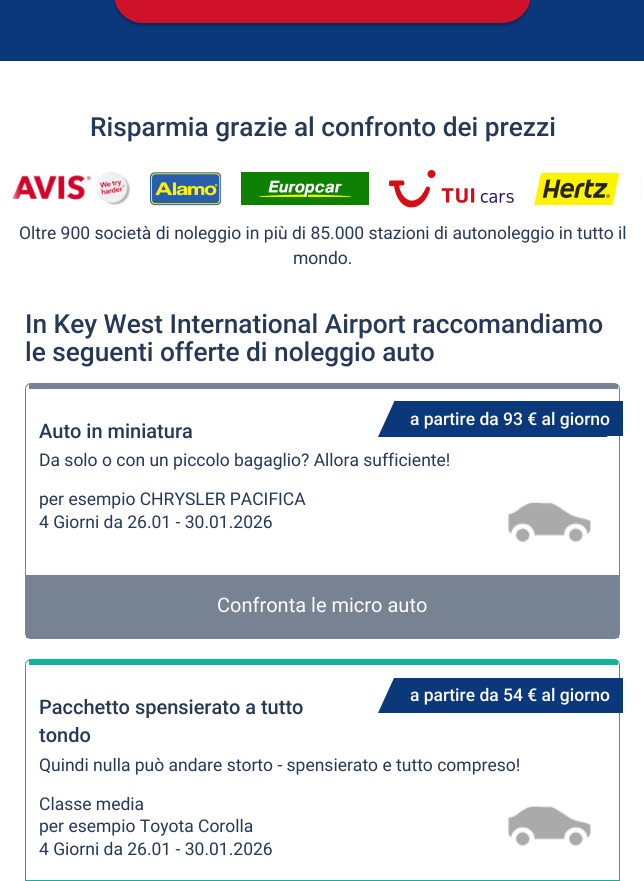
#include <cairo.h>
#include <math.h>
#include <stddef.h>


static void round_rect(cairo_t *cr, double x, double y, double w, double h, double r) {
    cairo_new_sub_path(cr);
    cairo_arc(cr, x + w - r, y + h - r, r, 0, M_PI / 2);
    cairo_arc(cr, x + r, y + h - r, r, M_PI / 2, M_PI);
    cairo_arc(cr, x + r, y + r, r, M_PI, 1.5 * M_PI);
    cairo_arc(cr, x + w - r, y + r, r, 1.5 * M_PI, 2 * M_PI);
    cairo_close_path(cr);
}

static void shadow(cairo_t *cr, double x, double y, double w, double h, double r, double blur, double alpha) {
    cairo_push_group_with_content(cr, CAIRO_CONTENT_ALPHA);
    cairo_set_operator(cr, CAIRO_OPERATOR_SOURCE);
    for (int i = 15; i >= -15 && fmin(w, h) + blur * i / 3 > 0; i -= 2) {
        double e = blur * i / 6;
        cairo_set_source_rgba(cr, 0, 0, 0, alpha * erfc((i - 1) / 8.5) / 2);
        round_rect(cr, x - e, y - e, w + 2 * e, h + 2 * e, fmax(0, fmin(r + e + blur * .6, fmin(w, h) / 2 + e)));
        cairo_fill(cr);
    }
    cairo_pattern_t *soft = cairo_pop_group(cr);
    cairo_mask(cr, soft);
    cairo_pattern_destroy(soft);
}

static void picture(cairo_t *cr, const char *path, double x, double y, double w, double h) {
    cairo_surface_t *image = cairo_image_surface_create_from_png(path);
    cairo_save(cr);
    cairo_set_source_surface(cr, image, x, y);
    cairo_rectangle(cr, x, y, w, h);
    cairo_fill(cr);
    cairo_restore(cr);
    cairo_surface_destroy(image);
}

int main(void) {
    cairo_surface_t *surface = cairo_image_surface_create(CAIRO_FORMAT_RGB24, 644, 881);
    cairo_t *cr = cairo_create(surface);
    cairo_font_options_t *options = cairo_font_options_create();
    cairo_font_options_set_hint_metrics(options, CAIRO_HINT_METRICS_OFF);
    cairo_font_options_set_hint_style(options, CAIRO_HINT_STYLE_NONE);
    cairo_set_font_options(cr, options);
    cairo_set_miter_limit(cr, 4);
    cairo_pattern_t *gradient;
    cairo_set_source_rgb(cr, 1, 1, 1);
    cairo_paint(cr);
    cairo_set_source_rgb(cr, 0.043, 0.22, 0.478);
    cairo_rectangle(cr, 0, 0, 644, 61);
    cairo_fill(cr);
    cairo_set_source_rgb(cr, 0, 0, 0);
    shadow(cr, 114, -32, 417, 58, 29, 1, 0.25);
    cairo_set_source_rgb(cr, 0.812, 0.067, 0.161);
    round_rect(cr, 114, -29, 417, 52, 29);
    cairo_fill(cr);
    cairo_select_font_face(cr, "Roboto Medium", CAIRO_FONT_SLANT_NORMAL, CAIRO_FONT_WEIGHT_NORMAL);
    cairo_set_font_size(cr, 26.25);
    cairo_set_source_rgb(cr, 0.145, 0.22, 0.345);
    cairo_move_to(cr, 90, 136);
    cairo_show_text(cr, "Risparmia grazie al confronto dei prezzi");
    picture(cr, "img1.png", 12, 172, 118, 33);
    picture(cr, "img2.png", 150, 172, 71, 34);
    picture(cr, "img3.png", 241, 172, 128, 33);
    picture(cr, "img4.png", 389, 170, 125, 38);
    picture(cr, "img5.png", 534, 173, 86, 32);
    picture(cr, "img6.png", 640, 175, 1, 28);
    gradient = cairo_pattern_create_linear(0, 189, 31, 189);
    cairo_pattern_add_color_stop_rgba(gradient, 0.12, 1, 1, 1, 1);
    cairo_pattern_add_color_stop_rgba(gradient, 0.36, 1, 1, 1, 0.61);
    cairo_pattern_add_color_stop_rgba(gradient, 0.67, 1, 1, 1, 0);
    cairo_set_source(cr, gradient);
    cairo_pattern_destroy(gradient);
    cairo_rectangle(cr, 12, 181, 8, 18);
    cairo_fill(cr);
    gradient = cairo_pattern_create_linear(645, 189, 614, 189);
    cairo_pattern_add_color_stop_rgba(gradient, 0.12, 1, 1, 1, 1);
    cairo_pattern_add_color_stop_rgba(gradient, 0.36, 1, 1, 1, 0.61);
    cairo_pattern_add_color_stop_rgba(gradient, 0.67, 1, 1, 1, 0);
    cairo_set_source(cr, gradient);
    cairo_pattern_destroy(gradient);
    cairo_rectangle(cr, 640, 175, 1, 28);
    cairo_fill(cr);
    cairo_select_font_face(cr, "Roboto", CAIRO_FONT_SLANT_NORMAL, CAIRO_FONT_WEIGHT_NORMAL);
    cairo_set_font_size(cr, 17.5);
    cairo_set_source_rgb(cr, 0.145, 0.22, 0.345);
    cairo_move_to(cr, 19, 239);
    cairo_show_text(cr, "Oltre 900 società di noleggio in più di 85.000 stazioni di autonoleggio in tutto il");
    cairo_move_to(cr, 293, 264);
    cairo_show_text(cr, "mondo.");
    cairo_select_font_face(cr, "Roboto Medium", CAIRO_FONT_SLANT_NORMAL, CAIRO_FONT_WEIGHT_NORMAL);
    cairo_set_font_size(cr, 26.25);
    cairo_move_to(cr, 25, 333);
    cairo_show_text(cr, "In Key West International Airport raccomandiamo");
    cairo_move_to(cr, 25, 361);
    cairo_show_text(cr, "le seguenti offerte di noleggio auto");
    round_rect(cr, 25.5, 383.5, 594, 255, 5.5);
    cairo_set_source_rgb(cr, 0.467, 0.51, 0.576);
    cairo_set_line_width(cr, 1);
    cairo_stroke(cr);
    cairo_rectangle(cr, 29, 384, 589, 5);
    cairo_fill(cr);
    cairo_set_source_rgb(cr, 0.043, 0.22, 0.478);
    cairo_rectangle(cr, 394, 401, 229, 35);
    cairo_fill(cr);
    cairo_new_path(cr);
    cairo_move_to(cr, 394, 402);
    cairo_line_to(cr, 622, 402);
    cairo_line_to(cr, 607, 437);
    cairo_line_to(cr, 378, 437);
    cairo_close_path(cr);
    cairo_fill(cr);
    cairo_set_font_size(cr, 17.5);
    cairo_set_source_rgb(cr, 1, 1, 1);
    cairo_move_to(cr, 410, 425);
    cairo_show_text(cr, "a partire da 93 € al giorno");
    cairo_set_font_size(cr, 20);
    cairo_set_source_rgb(cr, 0.145, 0.22, 0.345);
    cairo_move_to(cr, 39, 438);
    cairo_show_text(cr, "Auto in miniatura");
    cairo_select_font_face(cr, "Roboto", CAIRO_FONT_SLANT_NORMAL, CAIRO_FONT_WEIGHT_NORMAL);
    cairo_set_font_size(cr, 17.5);
    cairo_move_to(cr, 39, 466);
    cairo_show_text(cr, "Da solo o con un piccolo bagaglio? Allora sufficiente!");
    cairo_move_to(cr, 39, 505);
    cairo_show_text(cr, "per esempio CHRYSLER PACIFICA");
    cairo_move_to(cr, 39, 528);
    cairo_show_text(cr, "4 Giorni da 26.01 - 30.01.2026");
    picture(cr, "img7.png", 508, 502, 83, 40);
    cairo_set_source_rgb(cr, 0.467, 0.51, 0.576);
    cairo_rectangle(cr, 26, 575, 593, 63);
    cairo_fill(cr);
    cairo_set_font_size(cr, 20);
    cairo_set_source_rgb(cr, 1, 1, 1);
    cairo_move_to(cr, 217, 612);
    cairo_show_text(cr, "Confronta le micro auto");
    round_rect(cr, 25.5, 659.5, 594, 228, 5.5);
    cairo_set_source_rgb(cr, 0.082, 0.69, 0.62);
    cairo_stroke(cr);
    cairo_rectangle(cr, 29, 660, 589, 5);
    cairo_fill(cr);
    cairo_set_source_rgb(cr, 0.043, 0.22, 0.478);
    cairo_rectangle(cr, 607, 678, 16, 35);
    cairo_fill(cr);
    cairo_new_path(cr);
    cairo_move_to(cr, 394, 678);
    cairo_line_to(cr, 622, 678);
    cairo_line_to(cr, 607, 713);
    cairo_line_to(cr, 378, 713);
    cairo_close_path(cr);
    cairo_fill(cr);
    cairo_select_font_face(cr, "Roboto Medium", CAIRO_FONT_SLANT_NORMAL, CAIRO_FONT_WEIGHT_NORMAL);
    cairo_set_font_size(cr, 17.5);
    cairo_set_source_rgb(cr, 1, 1, 1);
    cairo_move_to(cr, 410, 701);
    cairo_show_text(cr, "a partire da 54 € al giorno");
    cairo_set_font_size(cr, 20);
    cairo_set_source_rgb(cr, 0.145, 0.22, 0.345);
    cairo_move_to(cr, 39, 714);
    cairo_show_text(cr, "Pacchetto spensierato a tutto");
    cairo_move_to(cr, 39, 742);
    cairo_show_text(cr, "tondo");
    cairo_select_font_face(cr, "Roboto", CAIRO_FONT_SLANT_NORMAL, CAIRO_FONT_WEIGHT_NORMAL);
    cairo_set_font_size(cr, 17.5);
    cairo_move_to(cr, 39, 771);
    cairo_show_text(cr, "Quindi nulla può andare storto - spensierato e tutto compreso!");
    cairo_move_to(cr, 39, 810);
    cairo_show_text(cr, "Classe media");
    cairo_move_to(cr, 39, 832);
    cairo_show_text(cr, "per esempio Toyota Corolla");
    cairo_move_to(cr, 39, 855);
    cairo_show_text(cr, "4 Giorni da 26.01 - 30.01.2026");
    picture(cr, "img8.png", 508, 806, 83, 40);
    cairo_set_source_rgb(cr, 0.082, 0.69, 0.62);
    cairo_rectangle(cr, 26, 880, 593, 1);
    cairo_fill(cr);
    cairo_surface_write_to_png(surface, "page.png");
    cairo_font_options_destroy(options);
    cairo_destroy(cr);
    cairo_surface_destroy(surface);
    return 0;
}
